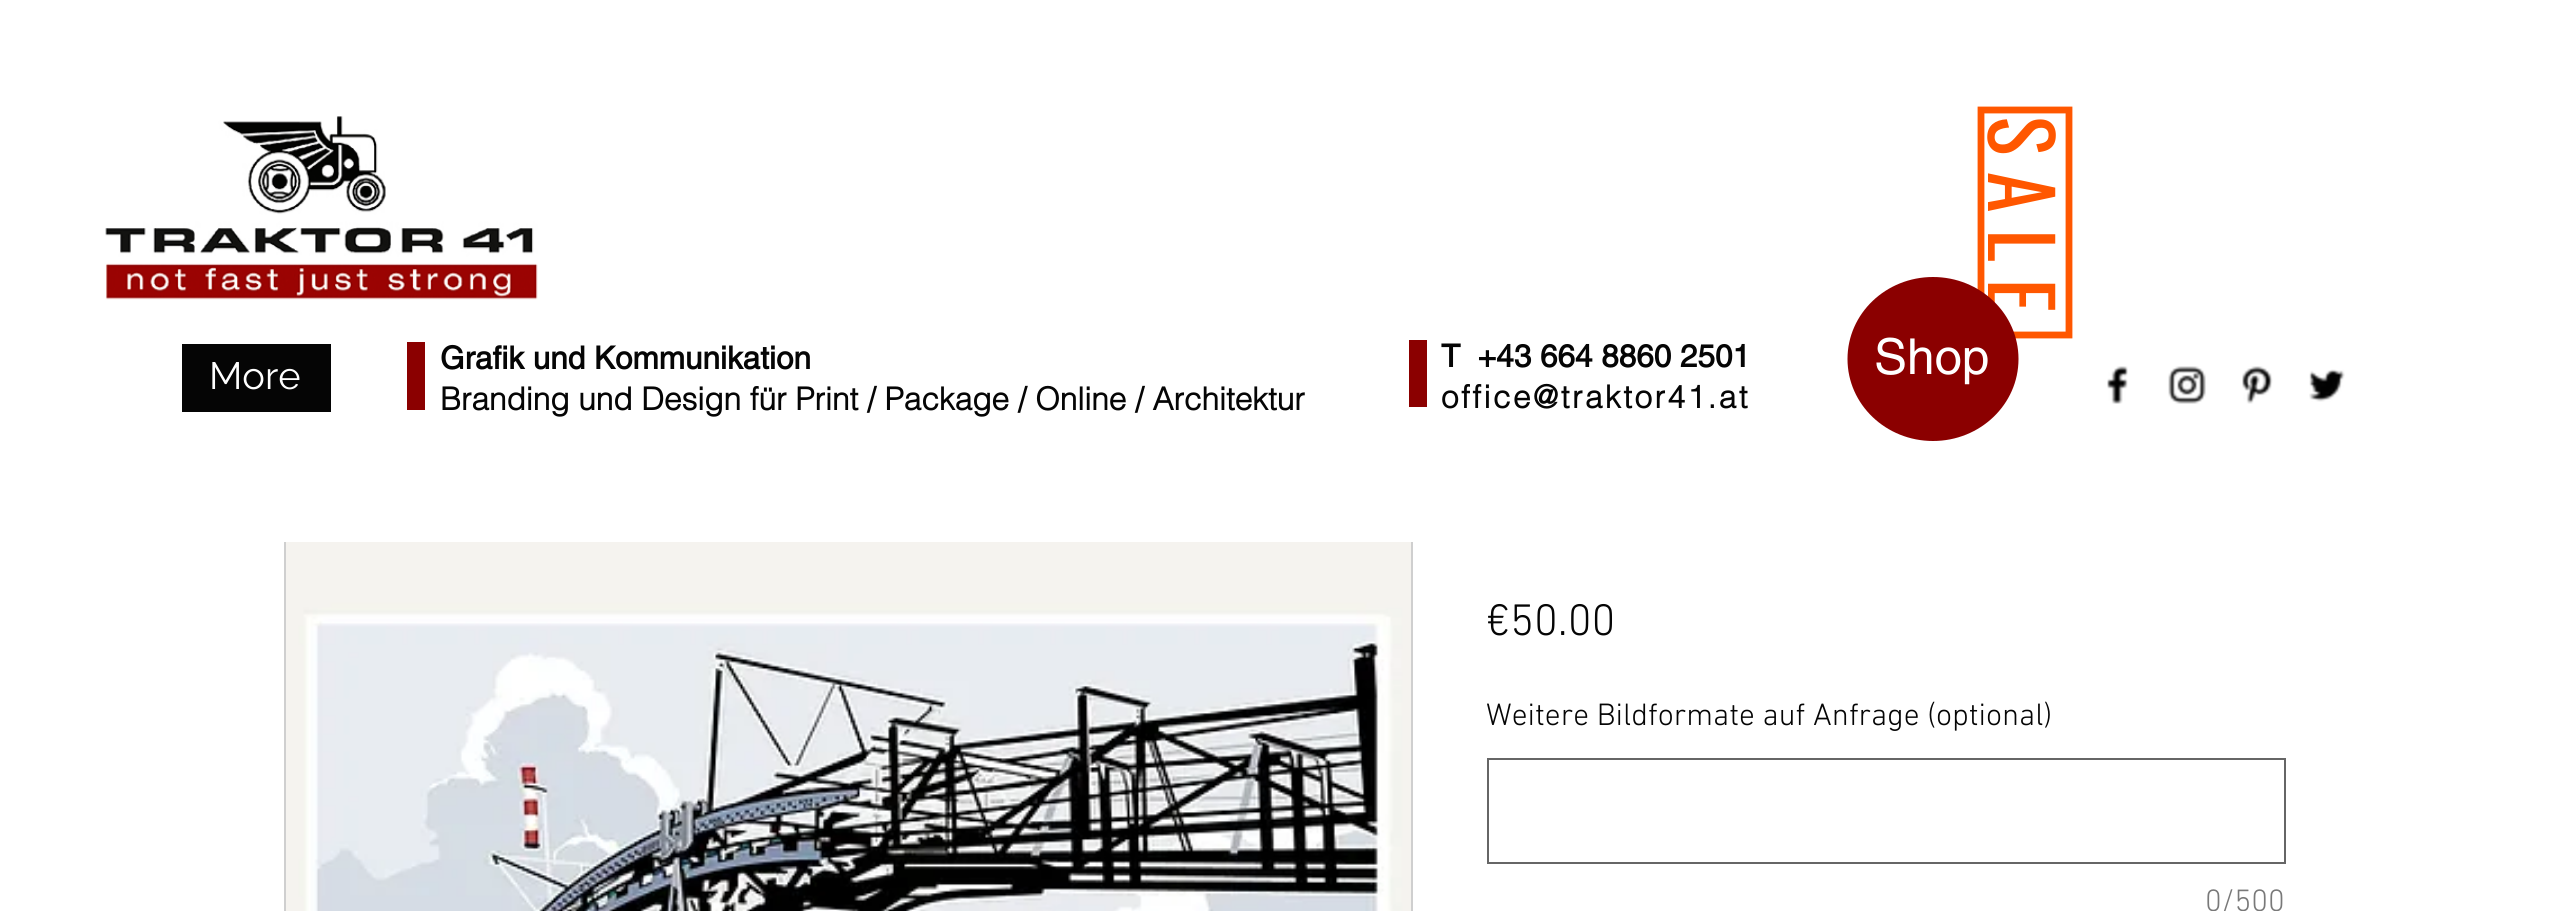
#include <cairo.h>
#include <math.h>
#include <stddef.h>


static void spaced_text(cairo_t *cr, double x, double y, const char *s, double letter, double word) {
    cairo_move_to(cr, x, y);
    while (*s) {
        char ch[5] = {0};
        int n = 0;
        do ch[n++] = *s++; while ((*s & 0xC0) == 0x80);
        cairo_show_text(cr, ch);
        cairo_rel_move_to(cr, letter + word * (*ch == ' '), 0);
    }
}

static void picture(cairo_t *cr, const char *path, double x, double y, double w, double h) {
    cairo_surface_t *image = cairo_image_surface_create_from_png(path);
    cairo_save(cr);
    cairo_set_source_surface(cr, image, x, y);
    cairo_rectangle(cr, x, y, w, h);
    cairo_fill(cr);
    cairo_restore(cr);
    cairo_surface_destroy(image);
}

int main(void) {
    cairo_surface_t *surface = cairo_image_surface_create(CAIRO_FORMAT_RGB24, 2567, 911);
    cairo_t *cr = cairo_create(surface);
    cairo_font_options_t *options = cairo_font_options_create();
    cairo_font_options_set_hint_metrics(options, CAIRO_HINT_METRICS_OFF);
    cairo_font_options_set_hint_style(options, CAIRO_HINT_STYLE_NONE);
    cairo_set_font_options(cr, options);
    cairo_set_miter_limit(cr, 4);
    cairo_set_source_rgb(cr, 1, 1, 1);
    cairo_paint(cr);
    picture(cr, "img1.png", 105, 116, 433, 184);
    cairo_new_path(cr);
    cairo_move_to(cr, 2069, 110);
    cairo_line_to(cr, 2069, 335);
    cairo_line_to(cr, 1981, 335);
    cairo_line_to(cr, 1981, 110);
    cairo_close_path(cr);
    cairo_set_source_rgb(cr, 1, 0.341, 0);
    cairo_set_line_width(cr, 6.8);
    cairo_stroke(cr);
    cairo_select_font_face(cr, "Oswald", CAIRO_FONT_SLANT_NORMAL, CAIRO_FONT_WEIGHT_NORMAL);
    cairo_set_font_size(cr, 83);
    cairo_save(cr);
    cairo_translate(cr, 1988, 116);
    cairo_rotate(cr, 90 * M_PI / 180);
    spaced_text(cr, 0, 0, "SALE", 16.5, 0);
    cairo_restore(cr);
    cairo_set_source_rgb(cr, 0.02, 0.02, 0.02);
    cairo_rectangle(cr, 182, 344, 149, 68);
    cairo_fill(cr);
    cairo_select_font_face(cr, "Raleway", CAIRO_FONT_SLANT_NORMAL, CAIRO_FONT_WEIGHT_NORMAL);
    cairo_set_font_size(cr, 38);
    cairo_set_source_rgb(cr, 1, 1, 1);
    cairo_move_to(cr, 209, 389);
    cairo_show_text(cr, "More");
    cairo_set_source_rgb(cr, 0.545, 0, 0);
    cairo_rectangle(cr, 407, 342, 18, 68);
    cairo_fill(cr);
    cairo_select_font_face(cr, "helvetica", CAIRO_FONT_SLANT_NORMAL, CAIRO_FONT_WEIGHT_BOLD);
    cairo_set_font_size(cr, 31.5);
    cairo_set_source_rgb(cr, 0.02, 0.02, 0.02);
    cairo_move_to(cr, 440, 369);
    cairo_show_text(cr, "Grafik und Kommunikation");
    cairo_select_font_face(cr, "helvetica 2", CAIRO_FONT_SLANT_NORMAL, CAIRO_FONT_WEIGHT_BOLD);
    cairo_move_to(cr, 440, 410);
    cairo_show_text(cr, "Branding und Design für Print / Package / Online / Architektur");
    cairo_set_source_rgb(cr, 0.545, 0, 0);
    cairo_rectangle(cr, 1409, 340, 18, 67);
    cairo_fill(cr);
    cairo_select_font_face(cr, "helvetica", CAIRO_FONT_SLANT_NORMAL, CAIRO_FONT_WEIGHT_BOLD);
    cairo_set_source_rgb(cr, 0.02, 0.02, 0.02);
    cairo_move_to(cr, 1441, 367);
    cairo_show_text(cr, "T  +43 664 8860 2501");
    cairo_select_font_face(cr, "helvetica 2", CAIRO_FONT_SLANT_NORMAL, CAIRO_FONT_WEIGHT_BOLD);
    spaced_text(cr, 1441, 408, "office@traktor41.at", 2.5, 0);
    cairo_set_source_rgb(cr, 0.545, 0, 0);
    cairo_new_path(cr);
    cairo_move_to(cr, 1933, 277);
    cairo_curve_to(cr, 1980, 277, 2018.5, 313.5, 2018.5, 359);
    cairo_curve_to(cr, 2018.5, 404.5, 1980, 441, 1933, 441);
    cairo_curve_to(cr, 1886, 441, 1847.5, 404.5, 1847.5, 359);
    cairo_curve_to(cr, 1847.5, 313.5, 1886, 277, 1933, 277);
    cairo_close_path(cr);
    cairo_fill(cr);
    cairo_select_font_face(cr, "helvetica", CAIRO_FONT_SLANT_NORMAL, CAIRO_FONT_WEIGHT_NORMAL);
    cairo_set_font_size(cr, 49.5);
    cairo_set_source_rgb(cr, 1, 1, 1);
    cairo_move_to(cr, 1874, 374);
    cairo_show_text(cr, "Shop");
    picture(cr, "img2.png", 2107, 366, 21, 38);
    picture(cr, "img3.png", 2168, 366, 38, 38);
    picture(cr, "img4.png", 2242, 366, 31, 38);
    picture(cr, "img5.png", 2309, 369, 36, 33);
    cairo_rectangle(cr, 285, 462, 1127, 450);
    cairo_set_source_rgb(cr, 0.812, 0.812, 0.812);
    cairo_set_line_width(cr, 2);
    cairo_stroke(cr);
    cairo_set_source_rgb(cr, 1, 1, 1);
    cairo_rectangle(cr, 284, 461, 1129, 81);
    cairo_fill(cr);
    picture(cr, "img6.png", 286, 542, 1125, 369);
    cairo_select_font_face(cr, "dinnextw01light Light", CAIRO_FONT_SLANT_NORMAL, CAIRO_FONT_WEIGHT_NORMAL);
    cairo_set_font_size(cr, 45);
    cairo_set_source_rgb(cr, 0.02, 0.02, 0.02);
    cairo_move_to(cr, 1486, 635);
    cairo_show_text(cr, "€50.00");
    cairo_set_font_size(cr, 31.5);
    cairo_move_to(cr, 1486, 725);
    cairo_show_text(cr, "Weitere Bildformate auf Anfrage (optional)");
    cairo_rectangle(cr, 1488, 759, 797, 104);
    cairo_set_source_rgb(cr, 0.4, 0.4, 0.4);
    cairo_stroke(cr);
    cairo_set_source_rgb(cr, 0.475, 0.475, 0.475);
    cairo_move_to(cr, 2205, 911);
    cairo_show_text(cr, "0/500");
    cairo_surface_write_to_png(surface, "page.png");
    cairo_font_options_destroy(options);
    cairo_destroy(cr);
    cairo_surface_destroy(surface);
    return 0;
}
